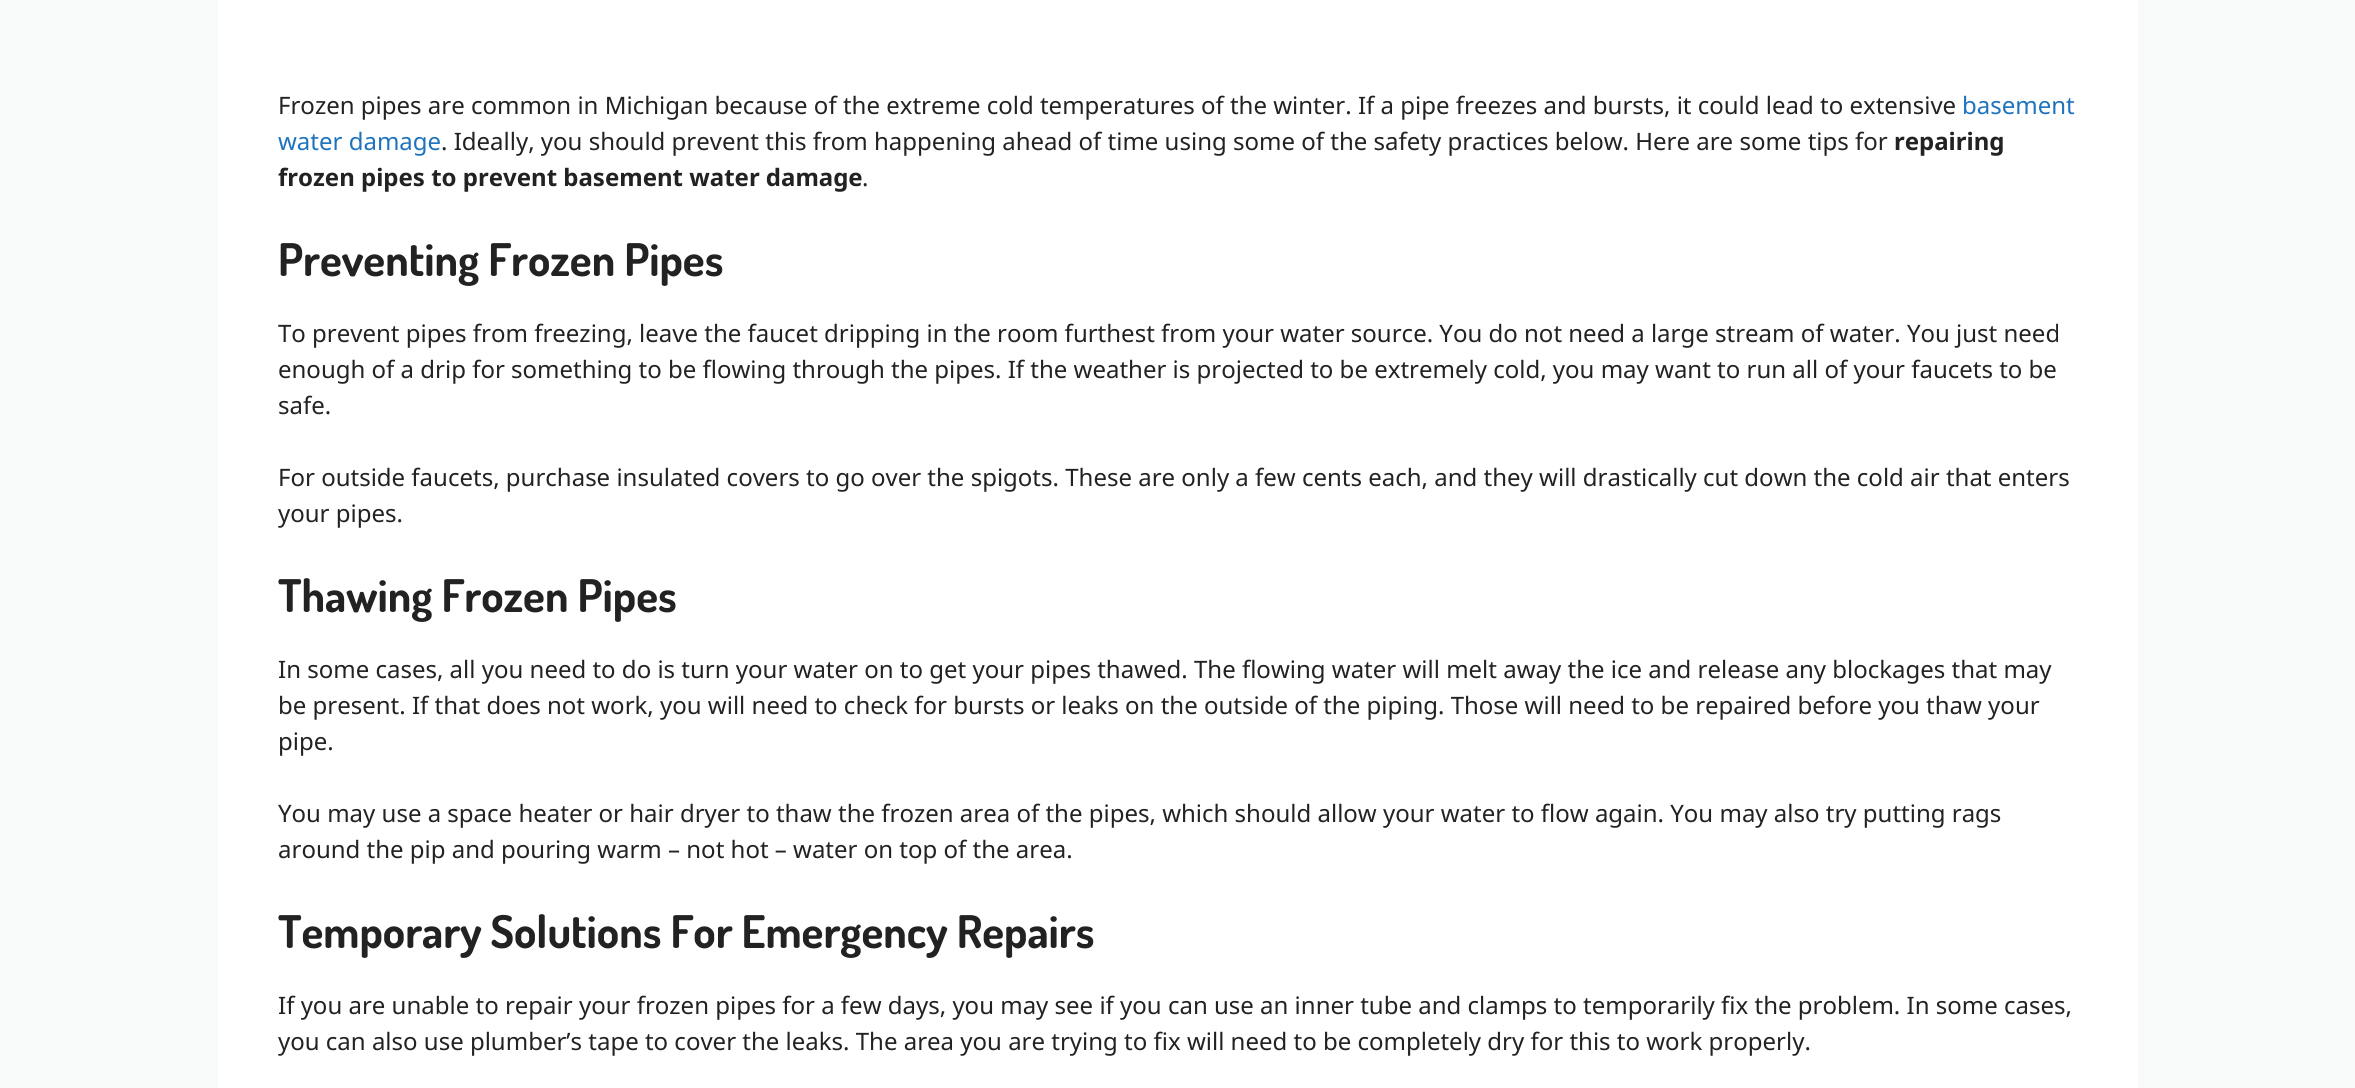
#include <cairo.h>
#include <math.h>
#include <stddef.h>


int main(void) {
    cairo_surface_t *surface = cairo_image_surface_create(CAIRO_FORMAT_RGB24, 2355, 1088);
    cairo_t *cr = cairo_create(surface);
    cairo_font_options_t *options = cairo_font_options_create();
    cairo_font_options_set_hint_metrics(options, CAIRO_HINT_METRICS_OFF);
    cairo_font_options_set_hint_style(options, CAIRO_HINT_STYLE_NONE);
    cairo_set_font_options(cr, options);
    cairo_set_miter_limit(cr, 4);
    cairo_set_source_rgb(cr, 0.969, 0.973, 0.976);
    cairo_paint(cr);
    cairo_set_source_rgb(cr, 1, 1, 1);
    cairo_rectangle(cr, 218, 0, 1920, 1088);
    cairo_fill(cr);
    cairo_select_font_face(cr, "Noto Sans", CAIRO_FONT_SLANT_NORMAL, CAIRO_FONT_WEIGHT_NORMAL);
    cairo_set_font_size(cr, 24);
    cairo_set_source_rgb(cr, 0.133, 0.133, 0.133);
    cairo_move_to(cr, 278, 114);
    cairo_show_text(cr, "Frozen pipes are common in Michigan because of the extreme cold temperatures of the winter. If a pipe freezes and bursts, it could lead to extensive");
    cairo_set_source_rgb(cr, 0.118, 0.451, 0.745);
    cairo_move_to(cr, 1962, 114);
    cairo_show_text(cr, "basement");
    cairo_move_to(cr, 278, 150);
    cairo_show_text(cr, "water damage");
    cairo_set_source_rgb(cr, 0.133, 0.133, 0.133);
    cairo_move_to(cr, 441, 150);
    cairo_show_text(cr, ". Ideally, you should prevent this from happening ahead of time using some of the safety practices below. Here are some tips for");
    cairo_select_font_face(cr, "Noto Sans", CAIRO_FONT_SLANT_NORMAL, CAIRO_FONT_WEIGHT_BOLD);
    cairo_move_to(cr, 1894, 150);
    cairo_show_text(cr, "repairing");
    cairo_move_to(cr, 278, 186);
    cairo_show_text(cr, "frozen pipes to prevent basement water damage");
    cairo_select_font_face(cr, "Noto Sans", CAIRO_FONT_SLANT_NORMAL, CAIRO_FONT_WEIGHT_NORMAL);
    cairo_move_to(cr, 862, 186);
    cairo_show_text(cr, ".");
    cairo_select_font_face(cr, "Dosis", CAIRO_FONT_SLANT_NORMAL, CAIRO_FONT_WEIGHT_BOLD);
    cairo_set_font_size(cr, 45);
    cairo_move_to(cr, 278, 276);
    cairo_show_text(cr, "Preventing Frozen Pipes");
    cairo_select_font_face(cr, "Noto Sans", CAIRO_FONT_SLANT_NORMAL, CAIRO_FONT_WEIGHT_NORMAL);
    cairo_set_font_size(cr, 24);
    cairo_move_to(cr, 278, 342);
    cairo_show_text(cr, "To prevent pipes from freezing, leave the faucet dripping in the room furthest from your water source. You do not need a large stream of water. You just need");
    cairo_move_to(cr, 278, 378);
    cairo_show_text(cr, "enough of a drip for something to be flowing through the pipes. If the weather is projected to be extremely cold, you may want to run all of your faucets to be");
    cairo_move_to(cr, 278, 414);
    cairo_show_text(cr, "safe.");
    cairo_move_to(cr, 278, 486);
    cairo_show_text(cr, "For outside faucets, purchase insulated covers to go over the spigots. These are only a few cents each, and they will drastically cut down the cold air that enters");
    cairo_move_to(cr, 278, 522);
    cairo_show_text(cr, "your pipes.");
    cairo_select_font_face(cr, "Dosis", CAIRO_FONT_SLANT_NORMAL, CAIRO_FONT_WEIGHT_BOLD);
    cairo_set_font_size(cr, 45);
    cairo_move_to(cr, 278, 612);
    cairo_show_text(cr, "Thawing Frozen Pipes");
    cairo_select_font_face(cr, "Noto Sans", CAIRO_FONT_SLANT_NORMAL, CAIRO_FONT_WEIGHT_NORMAL);
    cairo_set_font_size(cr, 24);
    cairo_move_to(cr, 278, 678);
    cairo_show_text(cr, "In some cases, all you need to do is turn your water on to get your pipes thawed. The flowing water will melt away the ice and release any blockages that may");
    cairo_move_to(cr, 278, 714);
    cairo_show_text(cr, "be present. If that does not work, you will need to check for bursts or leaks on the outside of the piping. Those will need to be repaired before you thaw your");
    cairo_move_to(cr, 278, 750);
    cairo_show_text(cr, "pipe.");
    cairo_move_to(cr, 278, 822);
    cairo_show_text(cr, "You may use a space heater or hair dryer to thaw the frozen area of the pipes, which should allow your water to flow again. You may also try putting rags");
    cairo_move_to(cr, 278, 858);
    cairo_show_text(cr, "around the pip and pouring warm – not hot – water on top of the area.");
    cairo_select_font_face(cr, "Dosis", CAIRO_FONT_SLANT_NORMAL, CAIRO_FONT_WEIGHT_BOLD);
    cairo_set_font_size(cr, 45);
    cairo_move_to(cr, 278, 948);
    cairo_show_text(cr, "Temporary Solutions For Emergency Repairs");
    cairo_select_font_face(cr, "Noto Sans", CAIRO_FONT_SLANT_NORMAL, CAIRO_FONT_WEIGHT_NORMAL);
    cairo_set_font_size(cr, 24);
    cairo_move_to(cr, 278, 1014);
    cairo_show_text(cr, "If you are unable to repair your frozen pipes for a few days, you may see if you can use an inner tube and clamps to temporarily fix the problem. In some cases,");
    cairo_move_to(cr, 278, 1050);
    cairo_show_text(cr, "you can also use plumber’s tape to cover the leaks. The area you are trying to fix will need to be completely dry for this to work properly.");
    cairo_surface_write_to_png(surface, "page.png");
    cairo_font_options_destroy(options);
    cairo_destroy(cr);
    cairo_surface_destroy(surface);
    return 0;
}
